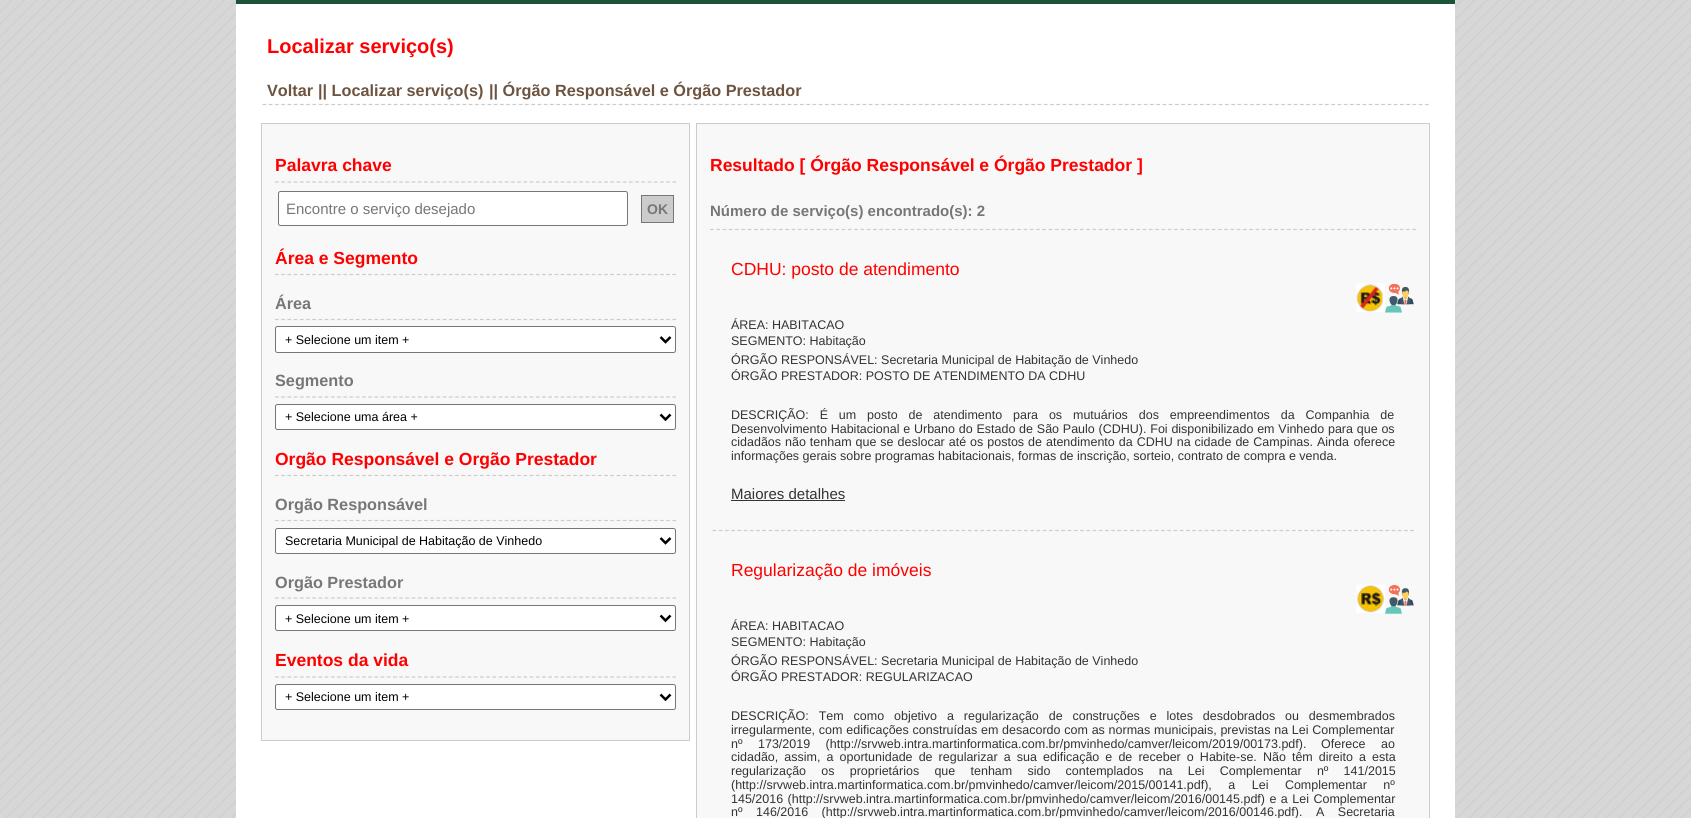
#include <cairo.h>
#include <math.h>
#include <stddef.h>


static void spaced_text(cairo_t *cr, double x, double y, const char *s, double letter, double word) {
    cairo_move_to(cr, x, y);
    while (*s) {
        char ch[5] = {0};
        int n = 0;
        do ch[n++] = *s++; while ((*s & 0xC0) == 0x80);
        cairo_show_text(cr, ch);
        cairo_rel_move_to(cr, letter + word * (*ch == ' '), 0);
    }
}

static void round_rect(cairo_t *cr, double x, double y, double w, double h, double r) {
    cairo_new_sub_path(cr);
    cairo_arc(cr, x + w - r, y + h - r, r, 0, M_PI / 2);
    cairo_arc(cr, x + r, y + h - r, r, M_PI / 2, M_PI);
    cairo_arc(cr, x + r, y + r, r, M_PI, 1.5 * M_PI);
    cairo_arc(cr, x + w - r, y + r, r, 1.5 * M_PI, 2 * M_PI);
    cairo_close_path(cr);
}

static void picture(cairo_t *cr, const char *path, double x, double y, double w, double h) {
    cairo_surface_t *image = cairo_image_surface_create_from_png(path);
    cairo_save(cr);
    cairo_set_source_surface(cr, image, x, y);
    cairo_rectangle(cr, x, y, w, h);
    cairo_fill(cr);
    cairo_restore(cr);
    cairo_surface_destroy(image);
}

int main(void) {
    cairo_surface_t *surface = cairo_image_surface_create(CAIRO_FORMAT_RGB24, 1691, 818);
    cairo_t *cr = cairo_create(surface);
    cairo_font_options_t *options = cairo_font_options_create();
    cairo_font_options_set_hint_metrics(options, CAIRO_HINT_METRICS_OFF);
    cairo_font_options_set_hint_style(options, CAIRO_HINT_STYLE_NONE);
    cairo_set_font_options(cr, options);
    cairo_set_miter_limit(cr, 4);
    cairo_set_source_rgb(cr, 1, 1, 1);
    cairo_paint(cr);
    picture(cr, "img1.png", 0, 0, 1691, 818);
    cairo_set_source_rgb(cr, 1, 1, 1);
    cairo_rectangle(cr, 236, 4, 1219, 814);
    cairo_fill(cr);
    cairo_set_source_rgb(cr, 0.11, 0.325, 0.212);
    cairo_rectangle(cr, 236, 0, 1219, 4);
    cairo_fill(cr);
    cairo_select_font_face(cr, "Liberation Sans", CAIRO_FONT_SLANT_NORMAL, CAIRO_FONT_WEIGHT_BOLD);
    cairo_set_font_size(cr, 20);
    cairo_set_source_rgb(cr, 1, 0, 0);
    cairo_move_to(cr, 267, 53);
    cairo_show_text(cr, "Localizar serviço(s)");
    cairo_new_path(cr);
    cairo_move_to(cr, 262.5, 104.5);
    cairo_line_to(cr, 1429, 104.5);
    cairo_set_source_rgb(cr, 0.8, 0.8, 0.8);
    cairo_set_line_width(cr, 1.2);
    cairo_set_dash(cr, (double[]){3.75, 2.5}, 2, 0);
    cairo_stroke(cr);
    cairo_set_font_size(cr, 16.25);
    cairo_set_source_rgb(cr, 0.427, 0.329, 0.251);
    cairo_move_to(cr, 267, 96);
    cairo_show_text(cr, "Voltar");
    cairo_move_to(cr, 318, 96);
    cairo_show_text(cr, "|| Localizar serviço(s)");
    cairo_move_to(cr, 489, 96);
    cairo_show_text(cr, "|| Órgão Responsável e Órgão Prestador");
    cairo_set_source_rgb(cr, 0.969, 0.969, 0.969);
    cairo_rectangle(cr, 261.5, 123.5, 428, 617);
    cairo_fill_preserve(cr);
    cairo_set_source_rgb(cr, 0.8, 0.8, 0.8);
    cairo_set_line_width(cr, 1);
    cairo_set_dash(cr, NULL, 0, 0);
    cairo_stroke(cr);
    cairo_new_path(cr);
    cairo_move_to(cr, 275, 182);
    cairo_line_to(cr, 676, 182);
    cairo_set_line_width(cr, 1.2);
    cairo_set_dash(cr, (double[]){3.75, 2.46}, 2, 0);
    cairo_stroke(cr);
    cairo_set_font_size(cr, 17.5);
    cairo_set_source_rgb(cr, 1, 0, 0);
    cairo_move_to(cr, 275, 171);
    cairo_show_text(cr, "Palavra chave");
    cairo_set_source_rgb(cr, 1, 1, 1);
    round_rect(cr, 278.5, 191.5, 349, 34, 2);
    cairo_fill_preserve(cr);
    cairo_set_source_rgb(cr, 0.463, 0.463, 0.463);
    cairo_set_line_width(cr, 1);
    cairo_set_dash(cr, NULL, 0, 0);
    cairo_stroke(cr);
    cairo_select_font_face(cr, "Liberation Sans", CAIRO_FONT_SLANT_NORMAL, CAIRO_FONT_WEIGHT_NORMAL);
    cairo_set_font_size(cr, 15);
    cairo_set_source_rgb(cr, 0.467, 0.467, 0.467);
    cairo_move_to(cr, 286, 214);
    cairo_show_text(cr, "Encontre o serviço desejado");
    cairo_set_source_rgb(cr, 0.8, 0.8, 0.8);
    cairo_rectangle(cr, 641.5, 195.5, 32, 27);
    cairo_fill_preserve(cr);
    cairo_set_source_rgb(cr, 0.467, 0.467, 0.467);
    cairo_stroke(cr);
    cairo_select_font_face(cr, "Liberation Sans", CAIRO_FONT_SLANT_NORMAL, CAIRO_FONT_WEIGHT_BOLD);
    cairo_set_font_size(cr, 14);
    cairo_move_to(cr, 647, 214);
    cairo_show_text(cr, "OK");
    cairo_new_path(cr);
    cairo_move_to(cr, 275, 274.5);
    cairo_line_to(cr, 676, 274.5);
    cairo_set_source_rgb(cr, 0.8, 0.8, 0.8);
    cairo_set_line_width(cr, 1.2);
    cairo_set_dash(cr, (double[]){3.75, 2.46}, 2, 0);
    cairo_stroke(cr);
    cairo_set_font_size(cr, 17.5);
    cairo_set_source_rgb(cr, 1, 0, 0);
    cairo_move_to(cr, 275, 264);
    cairo_show_text(cr, "Área e Segmento");
    cairo_new_path(cr);
    cairo_move_to(cr, 275, 319.5);
    cairo_line_to(cr, 676, 319.5);
    cairo_set_source_rgb(cr, 0.8, 0.8, 0.8);
    cairo_stroke(cr);
    cairo_set_font_size(cr, 16.25);
    cairo_set_source_rgb(cr, 0.467, 0.467, 0.467);
    cairo_move_to(cr, 275, 309);
    cairo_show_text(cr, "Área");
    cairo_set_source_rgb(cr, 1, 1, 1);
    round_rect(cr, 275.5, 326.5, 400, 26, 2);
    cairo_fill_preserve(cr);
    cairo_set_source_rgb(cr, 0.463, 0.463, 0.463);
    cairo_set_line_width(cr, 1);
    cairo_set_dash(cr, NULL, 0, 0);
    cairo_stroke(cr);
    cairo_new_path(cr);
    cairo_move_to(cr, 660.5, 337);
    cairo_line_to(cr, 665.5, 342);
    cairo_line_to(cr, 670.5, 337);
    cairo_set_source_rgb(cr, 0, 0, 0);
    cairo_set_line_width(cr, 2.5);
    cairo_stroke(cr);
    cairo_select_font_face(cr, "Liberation Sans", CAIRO_FONT_SLANT_NORMAL, CAIRO_FONT_WEIGHT_NORMAL);
    cairo_set_font_size(cr, 12.5);
    cairo_move_to(cr, 285, 344);
    cairo_show_text(cr, "+ Selecione um item +");
    cairo_new_path(cr);
    cairo_move_to(cr, 275, 397);
    cairo_line_to(cr, 676, 397);
    cairo_set_source_rgb(cr, 0.8, 0.8, 0.8);
    cairo_set_line_width(cr, 1.2);
    cairo_set_dash(cr, (double[]){3.75, 2.46}, 2, 0);
    cairo_stroke(cr);
    cairo_select_font_face(cr, "Liberation Sans", CAIRO_FONT_SLANT_NORMAL, CAIRO_FONT_WEIGHT_BOLD);
    cairo_set_font_size(cr, 16.25);
    cairo_set_source_rgb(cr, 0.467, 0.467, 0.467);
    cairo_move_to(cr, 275, 386);
    cairo_show_text(cr, "Segmento");
    cairo_set_source_rgb(cr, 1, 1, 1);
    round_rect(cr, 275.5, 404.5, 400, 25, 2);
    cairo_fill_preserve(cr);
    cairo_set_source_rgb(cr, 0.463, 0.463, 0.463);
    cairo_set_line_width(cr, 1);
    cairo_set_dash(cr, NULL, 0, 0);
    cairo_stroke(cr);
    cairo_new_path(cr);
    cairo_move_to(cr, 660.5, 414.5);
    cairo_line_to(cr, 665.5, 419.5);
    cairo_line_to(cr, 670.5, 414.5);
    cairo_set_source_rgb(cr, 0, 0, 0);
    cairo_set_line_width(cr, 2.5);
    cairo_stroke(cr);
    cairo_select_font_face(cr, "Liberation Sans", CAIRO_FONT_SLANT_NORMAL, CAIRO_FONT_WEIGHT_NORMAL);
    cairo_set_font_size(cr, 12.5);
    cairo_move_to(cr, 285, 421);
    cairo_show_text(cr, "+ Selecione uma área +");
    cairo_new_path(cr);
    cairo_move_to(cr, 275, 475.5);
    cairo_line_to(cr, 676, 475.5);
    cairo_set_source_rgb(cr, 0.8, 0.8, 0.8);
    cairo_set_line_width(cr, 1.2);
    cairo_set_dash(cr, (double[]){3.75, 2.46}, 2, 0);
    cairo_stroke(cr);
    cairo_select_font_face(cr, "Liberation Sans", CAIRO_FONT_SLANT_NORMAL, CAIRO_FONT_WEIGHT_BOLD);
    cairo_set_font_size(cr, 17.5);
    cairo_set_source_rgb(cr, 1, 0, 0);
    cairo_move_to(cr, 275, 465);
    cairo_show_text(cr, "Orgão Responsável e Orgão Prestador");
    cairo_new_path(cr);
    cairo_move_to(cr, 275, 520.5);
    cairo_line_to(cr, 676, 520.5);
    cairo_set_source_rgb(cr, 0.8, 0.8, 0.8);
    cairo_stroke(cr);
    cairo_set_font_size(cr, 16.25);
    cairo_set_source_rgb(cr, 0.467, 0.467, 0.467);
    cairo_move_to(cr, 275, 510);
    cairo_show_text(cr, "Orgão Responsável");
    cairo_set_source_rgb(cr, 1, 1, 1);
    round_rect(cr, 275.5, 528.5, 400, 25, 2);
    cairo_fill_preserve(cr);
    cairo_set_source_rgb(cr, 0.463, 0.463, 0.463);
    cairo_set_line_width(cr, 1);
    cairo_set_dash(cr, NULL, 0, 0);
    cairo_stroke(cr);
    cairo_new_path(cr);
    cairo_move_to(cr, 660.5, 538);
    cairo_line_to(cr, 665.5, 543);
    cairo_line_to(cr, 670.5, 538);
    cairo_set_source_rgb(cr, 0, 0, 0);
    cairo_set_line_width(cr, 2.5);
    cairo_stroke(cr);
    cairo_select_font_face(cr, "Liberation Sans", CAIRO_FONT_SLANT_NORMAL, CAIRO_FONT_WEIGHT_NORMAL);
    cairo_set_font_size(cr, 12.5);
    cairo_move_to(cr, 285, 545);
    cairo_show_text(cr, "Secretaria Municipal de Habitação de Vinhedo");
    cairo_new_path(cr);
    cairo_move_to(cr, 275, 598);
    cairo_line_to(cr, 676, 598);
    cairo_set_source_rgb(cr, 0.8, 0.8, 0.8);
    cairo_set_line_width(cr, 1.2);
    cairo_set_dash(cr, (double[]){3.75, 2.46}, 2, 0);
    cairo_stroke(cr);
    cairo_select_font_face(cr, "Liberation Sans", CAIRO_FONT_SLANT_NORMAL, CAIRO_FONT_WEIGHT_BOLD);
    cairo_set_font_size(cr, 16.25);
    cairo_set_source_rgb(cr, 0.467, 0.467, 0.467);
    cairo_move_to(cr, 275, 588);
    cairo_show_text(cr, "Orgão Prestador");
    cairo_set_source_rgb(cr, 1, 1, 1);
    round_rect(cr, 275.5, 605.5, 400, 25, 2);
    cairo_fill_preserve(cr);
    cairo_set_source_rgb(cr, 0.463, 0.463, 0.463);
    cairo_set_line_width(cr, 1);
    cairo_set_dash(cr, NULL, 0, 0);
    cairo_stroke(cr);
    cairo_new_path(cr);
    cairo_move_to(cr, 660.5, 615.5);
    cairo_line_to(cr, 665.5, 620.5);
    cairo_line_to(cr, 670.5, 615.5);
    cairo_set_source_rgb(cr, 0, 0, 0);
    cairo_set_line_width(cr, 2.5);
    cairo_stroke(cr);
    cairo_select_font_face(cr, "Liberation Sans", CAIRO_FONT_SLANT_NORMAL, CAIRO_FONT_WEIGHT_NORMAL);
    cairo_set_font_size(cr, 12.5);
    cairo_move_to(cr, 285, 623);
    cairo_show_text(cr, "+ Selecione um item +");
    cairo_new_path(cr);
    cairo_move_to(cr, 275, 677);
    cairo_line_to(cr, 676, 677);
    cairo_set_source_rgb(cr, 0.8, 0.8, 0.8);
    cairo_set_line_width(cr, 1.2);
    cairo_set_dash(cr, (double[]){3.75, 2.46}, 2, 0);
    cairo_stroke(cr);
    cairo_select_font_face(cr, "Liberation Sans", CAIRO_FONT_SLANT_NORMAL, CAIRO_FONT_WEIGHT_BOLD);
    cairo_set_font_size(cr, 17.5);
    cairo_set_source_rgb(cr, 1, 0, 0);
    cairo_move_to(cr, 275, 666);
    cairo_show_text(cr, "Eventos da vida");
    cairo_set_source_rgb(cr, 1, 1, 1);
    round_rect(cr, 275.5, 684.5, 400, 25, 2);
    cairo_fill_preserve(cr);
    cairo_set_source_rgb(cr, 0.463, 0.463, 0.463);
    cairo_set_line_width(cr, 1);
    cairo_set_dash(cr, NULL, 0, 0);
    cairo_stroke(cr);
    cairo_new_path(cr);
    cairo_move_to(cr, 660.5, 694.5);
    cairo_line_to(cr, 665.5, 699.5);
    cairo_line_to(cr, 670.5, 694.5);
    cairo_set_source_rgb(cr, 0, 0, 0);
    cairo_set_line_width(cr, 2.5);
    cairo_stroke(cr);
    cairo_select_font_face(cr, "Liberation Sans", CAIRO_FONT_SLANT_NORMAL, CAIRO_FONT_WEIGHT_NORMAL);
    cairo_set_font_size(cr, 12.5);
    cairo_move_to(cr, 285, 701);
    cairo_show_text(cr, "+ Selecione um item +");
    cairo_set_source_rgb(cr, 0.969, 0.969, 0.969);
    cairo_rectangle(cr, 696.5, 123.5, 733, 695);
    cairo_fill_preserve(cr);
    cairo_set_source_rgb(cr, 0.8, 0.8, 0.8);
    cairo_set_line_width(cr, 1);
    cairo_stroke(cr);
    cairo_select_font_face(cr, "Liberation Sans", CAIRO_FONT_SLANT_NORMAL, CAIRO_FONT_WEIGHT_BOLD);
    cairo_set_font_size(cr, 17.5);
    cairo_set_source_rgb(cr, 1, 0, 0);
    cairo_move_to(cr, 710, 171);
    cairo_show_text(cr, "Resultado [ Órgão Responsável e Órgão Prestador ]");
    cairo_new_path(cr);
    cairo_move_to(cr, 710, 229.5);
    cairo_line_to(cr, 1416, 229.5);
    cairo_set_source_rgb(cr, 0.8, 0.8, 0.8);
    cairo_set_line_width(cr, 1.2);
    cairo_set_dash(cr, (double[]){3.75, 2.52}, 2, 0);
    cairo_stroke(cr);
    cairo_set_font_size(cr, 15);
    cairo_set_source_rgb(cr, 0.467, 0.467, 0.467);
    cairo_move_to(cr, 710, 216);
    cairo_show_text(cr, "Número de serviço(s) encontrado(s): 2");
    cairo_select_font_face(cr, "Liberation Sans", CAIRO_FONT_SLANT_NORMAL, CAIRO_FONT_WEIGHT_NORMAL);
    cairo_set_font_size(cr, 17.5);
    cairo_set_source_rgb(cr, 1, 0, 0);
    cairo_move_to(cr, 731, 275);
    cairo_show_text(cr, "CDHU: posto de atendimento");
    picture(cr, "img2.png", 1356, 283, 29, 29);
    picture(cr, "img3.png", 1385, 284, 29, 29);
    cairo_set_font_size(cr, 12.5);
    cairo_set_source_rgb(cr, 0.2, 0.2, 0.2);
    cairo_move_to(cr, 731, 329);
    cairo_show_text(cr, "ÁREA: HABITACAO");
    cairo_move_to(cr, 731, 345);
    cairo_show_text(cr, "SEGMENTO: Habitação");
    cairo_move_to(cr, 731, 364);
    cairo_show_text(cr, "ÓRGÃO RESPONSÁVEL: Secretaria Municipal de Habitação de Vinhedo");
    cairo_move_to(cr, 731, 380);
    cairo_show_text(cr, "ÓRGÃO PRESTADOR: POSTO DE ATENDIMENTO DA CDHU");
    spaced_text(cr, 731, 419, "DESCRIÇÃO: É um posto de atendimento para os mutuários dos empreendimentos da Companhia de", 0, 7.4);
    spaced_text(cr, 731, 433, "Desenvolvimento Habitacional e Urbano do Estado de São Paulo (CDHU). Foi disponibilizado em Vinhedo para que os", 0, 0.3);
    spaced_text(cr, 731, 446, "cidadãos não tenham que se deslocar até os postos de atendimento da CDHU na cidade de Campinas.", 0, 0.5);
    spaced_text(cr, 1317, 446, "Ainda oferece", 0, 1);
    cairo_move_to(cr, 731, 460);
    cairo_show_text(cr, "informações gerais sobre programas habitacionais, formas de inscrição, sorteio, contrato de compra e venda.");
    cairo_set_font_size(cr, 15);
    cairo_move_to(cr, 731, 499);
    cairo_show_text(cr, "Maiores detalhes");
    cairo_rectangle(cr, 731, 500, 114, 1);
    cairo_fill(cr);
    cairo_new_path(cr);
    cairo_move_to(cr, 712.5, 530.5);
    cairo_line_to(cr, 1414, 530.5);
    cairo_set_source_rgb(cr, 0.8, 0.8, 0.8);
    cairo_set_dash(cr, (double[]){3.75, 2.48}, 2, 0);
    cairo_stroke(cr);
    cairo_set_font_size(cr, 17.5);
    cairo_set_source_rgb(cr, 1, 0, 0);
    cairo_move_to(cr, 731, 576);
    cairo_show_text(cr, "Regularização de imóveis");
    picture(cr, "img4.png", 1356, 584, 29, 29);
    picture(cr, "img5.png", 1385, 585, 29, 29);
    cairo_set_font_size(cr, 12.5);
    cairo_set_source_rgb(cr, 0.2, 0.2, 0.2);
    cairo_move_to(cr, 731, 630);
    cairo_show_text(cr, "ÁREA: HABITACAO");
    cairo_move_to(cr, 731, 646);
    cairo_show_text(cr, "SEGMENTO: Habitação");
    cairo_move_to(cr, 731, 665);
    cairo_show_text(cr, "ÓRGÃO RESPONSÁVEL: Secretaria Municipal de Habitação de Vinhedo");
    cairo_move_to(cr, 731, 681);
    cairo_show_text(cr, "ÓRGÃO PRESTADOR: REGULARIZACAO");
    spaced_text(cr, 731, 720, "DESCRIÇÃO: Tem como objetivo a regularização de construções e lotes desdobrados ou desmembrados", 0, 6.4);
    spaced_text(cr, 731, 734, "irregularmente, com edificações construídas em desacordo com as normas municipais, previstas na Lei Complementar", 0, 0.3);
    spaced_text(cr, 731, 748, "nº 173/2019 (http://srvweb.intra.martinformatica.com.br/pmvinhedo/camver/leicom/2019/00173.pdf).", 0, 12);
    spaced_text(cr, 1321, 748, "Oferece ao", 0, 12);
    spaced_text(cr, 731, 761, "cidadão, assim, a oportunidade de regularizar a sua edificação e de receber o Habite-se. Não têm direito a esta", 0, 2.6);
    spaced_text(cr, 731, 775, "regularização os proprietários que tenham sido contemplados na Lei Complementar nº 141/2015", 0, 11.75);
    spaced_text(cr, 731, 789, "(http://srvweb.intra.martinformatica.com.br/pmvinhedo/camver/leicom/2015/00141.pdf), a Lei Complementar nº", 0, 13);
    spaced_text(cr, 731, 803, "145/2016 (http://srvweb.intra.martinformatica.com.br/pmvinhedo/camver/leicom/2016/00145.pdf) e a Lei Complementar", 0, 1);
    spaced_text(cr, 731, 816, "nº 146/2016 (http://srvweb.intra.martinformatica.com.br/pmvinhedo/camver/leicom/2016/00146.pdf).", 0, 10);
    spaced_text(cr, 1316, 816, "A Secretaria", 0, 10);
    cairo_surface_write_to_png(surface, "page.png");
    cairo_font_options_destroy(options);
    cairo_destroy(cr);
    cairo_surface_destroy(surface);
    return 0;
}
